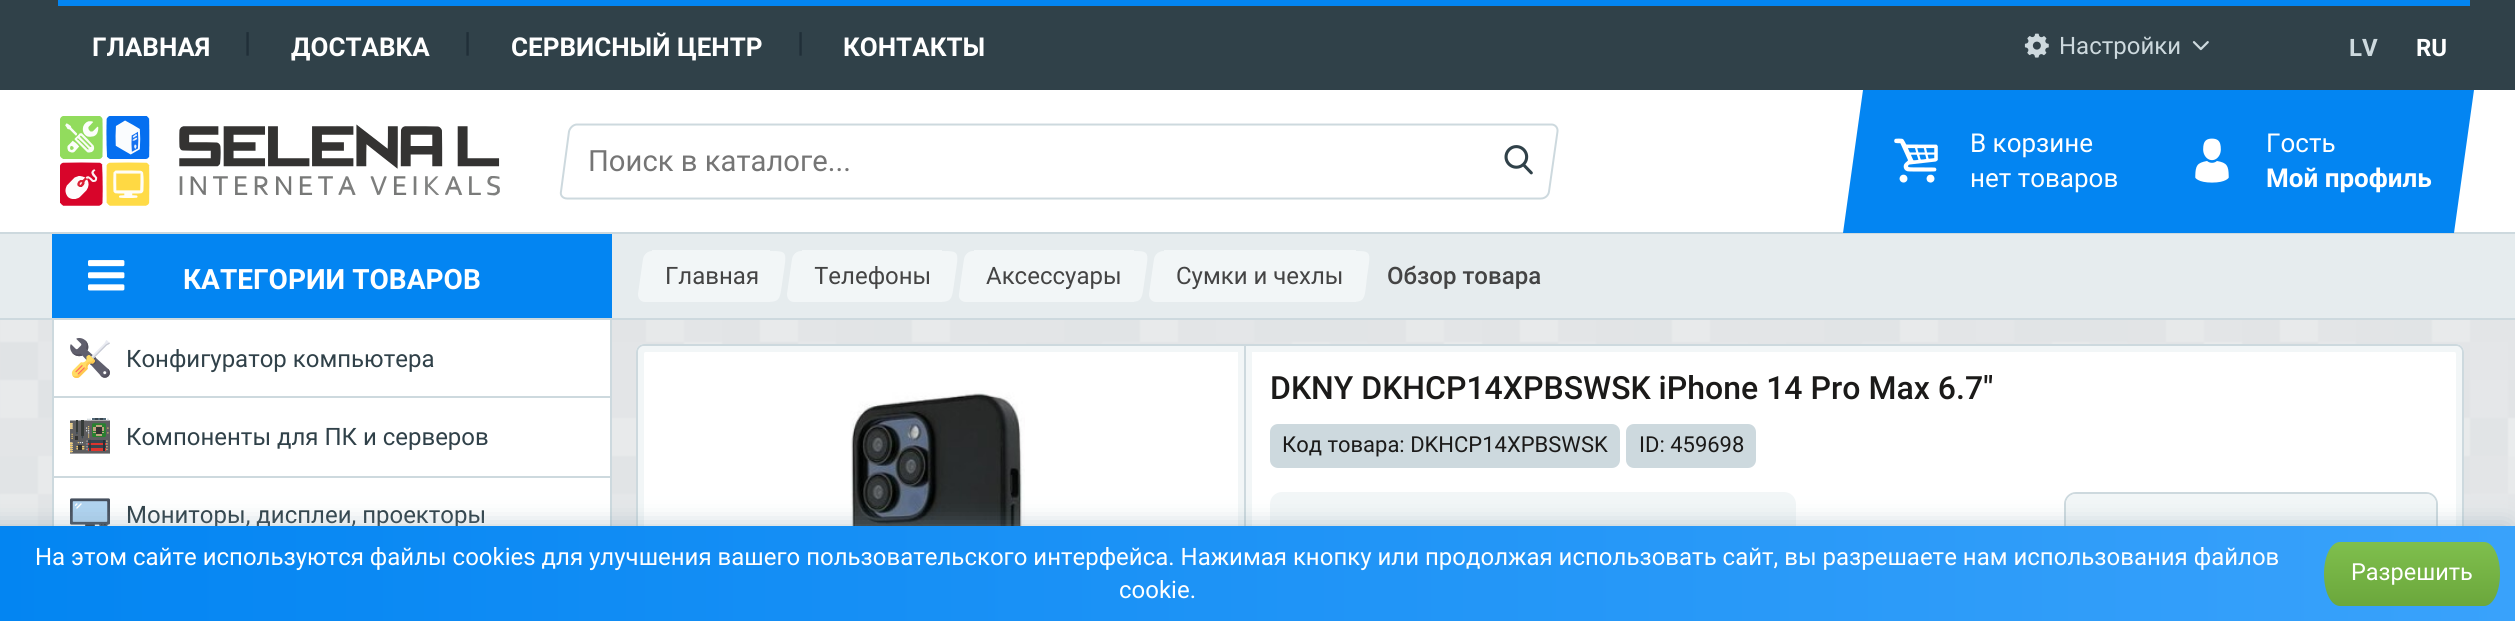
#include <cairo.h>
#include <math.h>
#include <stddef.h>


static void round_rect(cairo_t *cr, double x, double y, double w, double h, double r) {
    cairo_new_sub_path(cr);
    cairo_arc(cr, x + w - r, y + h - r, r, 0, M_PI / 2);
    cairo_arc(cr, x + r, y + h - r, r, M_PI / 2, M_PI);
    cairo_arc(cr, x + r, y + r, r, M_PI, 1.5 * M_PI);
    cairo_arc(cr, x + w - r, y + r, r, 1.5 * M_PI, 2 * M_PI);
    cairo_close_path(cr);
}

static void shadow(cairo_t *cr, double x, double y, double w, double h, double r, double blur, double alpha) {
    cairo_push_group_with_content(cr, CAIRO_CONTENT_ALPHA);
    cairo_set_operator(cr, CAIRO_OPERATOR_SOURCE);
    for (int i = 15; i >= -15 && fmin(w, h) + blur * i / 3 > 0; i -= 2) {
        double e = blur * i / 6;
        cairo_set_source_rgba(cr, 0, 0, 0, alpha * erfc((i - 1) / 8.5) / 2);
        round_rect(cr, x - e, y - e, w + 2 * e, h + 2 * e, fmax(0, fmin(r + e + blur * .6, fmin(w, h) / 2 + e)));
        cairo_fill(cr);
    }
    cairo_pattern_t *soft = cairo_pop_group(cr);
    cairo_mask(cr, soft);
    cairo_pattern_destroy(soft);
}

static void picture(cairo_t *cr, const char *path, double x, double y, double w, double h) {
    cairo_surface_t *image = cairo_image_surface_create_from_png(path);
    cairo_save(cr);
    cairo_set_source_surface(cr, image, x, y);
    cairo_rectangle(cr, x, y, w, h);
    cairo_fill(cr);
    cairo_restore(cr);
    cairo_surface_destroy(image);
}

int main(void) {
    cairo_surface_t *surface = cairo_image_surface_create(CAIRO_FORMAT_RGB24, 2515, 621);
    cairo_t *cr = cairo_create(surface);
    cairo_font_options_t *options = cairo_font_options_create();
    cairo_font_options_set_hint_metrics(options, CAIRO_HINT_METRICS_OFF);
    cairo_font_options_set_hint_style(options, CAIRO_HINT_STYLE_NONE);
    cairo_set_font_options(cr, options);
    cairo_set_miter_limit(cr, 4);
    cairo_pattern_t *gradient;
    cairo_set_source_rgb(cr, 1, 1, 1);
    cairo_paint(cr);
    picture(cr, "img1.png", 0, 320, 2515, 206);
    cairo_set_source_rgb(cr, 0.188, 0.255, 0.286);
    cairo_rectangle(cr, 0, 0, 2515, 90);
    cairo_fill(cr);
    cairo_set_source_rgb(cr, 0.012, 0.522, 0.949);
    cairo_rectangle(cr, 58, 0, 2412, 6);
    cairo_fill(cr);
    cairo_select_font_face(cr, "Roboto", CAIRO_FONT_SLANT_NORMAL, CAIRO_FONT_WEIGHT_BOLD);
    cairo_set_font_size(cr, 26);
    cairo_set_source_rgb(cr, 1, 1, 1);
    cairo_move_to(cr, 92, 56);
    cairo_show_text(cr, "ГЛАВНАЯ");
    cairo_set_font_size(cr, 28);
    cairo_set_source_rgb(cr, 0.125, 0.184, 0.22);
    cairo_move_to(cr, 244, 52);
    cairo_show_text(cr, "|");
    cairo_set_font_size(cr, 26);
    cairo_set_source_rgb(cr, 1, 1, 1);
    cairo_move_to(cr, 291, 56);
    cairo_show_text(cr, "ДОСТАВКА");
    cairo_set_font_size(cr, 28);
    cairo_set_source_rgb(cr, 0.125, 0.184, 0.22);
    cairo_move_to(cr, 464, 52);
    cairo_show_text(cr, "|");
    cairo_set_font_size(cr, 26);
    cairo_set_source_rgb(cr, 1, 1, 1);
    cairo_move_to(cr, 511, 56);
    cairo_show_text(cr, "СЕРВИСНЫЙ ЦЕНТР");
    cairo_set_font_size(cr, 28);
    cairo_set_source_rgb(cr, 0.125, 0.184, 0.22);
    cairo_move_to(cr, 797, 52);
    cairo_show_text(cr, "|");
    cairo_set_font_size(cr, 26);
    cairo_set_source_rgb(cr, 1, 1, 1);
    cairo_move_to(cr, 843, 56);
    cairo_show_text(cr, "КОНТАКТЫ");
    picture(cr, "img2.png", 2024, 33, 25, 25);
    cairo_select_font_face(cr, "Roboto", CAIRO_FONT_SLANT_NORMAL, CAIRO_FONT_WEIGHT_NORMAL);
    cairo_set_font_size(cr, 24);
    cairo_set_source_rgb(cr, 0.804, 0.851, 0.871);
    cairo_move_to(cr, 2059, 54);
    cairo_show_text(cr, "Настройки");
    picture(cr, "img3.png", 2192, 41, 17, 10);
    cairo_select_font_face(cr, "Roboto", CAIRO_FONT_SLANT_NORMAL, CAIRO_FONT_WEIGHT_BOLD);
    cairo_move_to(cr, 2349, 56);
    cairo_show_text(cr, "LV");
    cairo_set_source_rgb(cr, 1, 1, 1);
    cairo_move_to(cr, 2416, 56);
    cairo_show_text(cr, "RU");
    cairo_set_source_rgb(cr, 0.804, 0.851, 0.871);
    cairo_rectangle(cr, 0, 318, 2515, 2);
    cairo_fill(cr);
    picture(cr, "img4.png", 60, 116, 440, 90);
    cairo_new_path(cr);
    cairo_move_to(cr, 577, 124.5);
    cairo_line_to(cr, 1551.5, 124.5);
    cairo_curve_to(cr, 1555, 124.5, 1558, 127.5, 1557.5, 131.5);
    cairo_line_to(cr, 1549, 191.5);
    cairo_curve_to(cr, 1548.5, 195.5, 1545, 198.5, 1541, 198.5);
    cairo_line_to(cr, 567, 198.5);
    cairo_curve_to(cr, 563, 198.5, 560, 195.5, 561, 191.5);
    cairo_line_to(cr, 569, 131.5);
    cairo_curve_to(cr, 570, 127.5, 573.5, 124.5, 577, 124.5);
    cairo_close_path(cr);
    cairo_stroke(cr);
    cairo_select_font_face(cr, "Roboto", CAIRO_FONT_SLANT_NORMAL, CAIRO_FONT_WEIGHT_NORMAL);
    cairo_set_font_size(cr, 29.25);
    cairo_set_source_rgb(cr, 0.459, 0.459, 0.459);
    cairo_move_to(cr, 588, 171);
    cairo_show_text(cr, "Поиск в каталоге...");
    picture(cr, "img5.png", 1504, 145, 29, 30);
    cairo_set_source_rgb(cr, 0.804, 0.851, 0.871);
    cairo_rectangle(cr, 0, 232, 2515, 2);
    cairo_fill(cr);
    cairo_set_source_rgb(cr, 0.012, 0.522, 0.949);
    cairo_new_path(cr);
    cairo_move_to(cr, 1863, 90);
    cairo_line_to(cr, 2161, 90);
    cairo_line_to(cr, 2141, 233);
    cairo_line_to(cr, 1843, 233);
    cairo_close_path(cr);
    cairo_fill(cr);
    picture(cr, "img6.png", 1894, 138, 44, 45);
    cairo_set_font_size(cr, 26);
    cairo_set_source_rgb(cr, 1, 1, 1);
    cairo_move_to(cr, 1970, 152);
    cairo_show_text(cr, "В корзине");
    cairo_move_to(cr, 1970, 187);
    cairo_show_text(cr, "нет товаров");
    cairo_set_source_rgb(cr, 0.012, 0.522, 0.949);
    cairo_new_path(cr);
    cairo_move_to(cr, 2159, 90);
    cairo_line_to(cr, 2474, 90);
    cairo_line_to(cr, 2454, 233);
    cairo_line_to(cr, 2139, 233);
    cairo_close_path(cr);
    cairo_fill(cr);
    picture(cr, "img7.png", 2195, 138, 34, 45);
    cairo_set_source_rgb(cr, 1, 1, 1);
    cairo_move_to(cr, 2266, 152);
    cairo_show_text(cr, "Гость");
    cairo_select_font_face(cr, "Roboto", CAIRO_FONT_SLANT_NORMAL, CAIRO_FONT_WEIGHT_BOLD);
    cairo_move_to(cr, 2266, 187);
    cairo_show_text(cr, "Мой профиль");
    cairo_set_source_rgb(cr, 0.902, 0.922, 0.933);
    cairo_rectangle(cr, 0, 234, 2515, 84);
    cairo_fill(cr);
    cairo_set_source_rgb(cr, 0.012, 0.522, 0.949);
    cairo_rectangle(cr, 52, 234, 560, 84);
    cairo_fill(cr);
    picture(cr, "img8.png", 88, 260, 37, 31);
    cairo_set_font_size(cr, 28);
    cairo_set_source_rgb(cr, 1, 1, 1);
    cairo_move_to(cr, 183, 289);
    cairo_show_text(cr, "КАТЕГОРИИ ТОВАРОВ");
    cairo_set_source_rgb(cr, 0.949, 0.961, 0.965);
    cairo_rectangle(cr, 652, 250, 118, 52);
    cairo_fill(cr);
    cairo_select_font_face(cr, "Roboto", CAIRO_FONT_SLANT_NORMAL, CAIRO_FONT_WEIGHT_NORMAL);
    cairo_set_font_size(cr, 24);
    cairo_set_source_rgb(cr, 0.267, 0.267, 0.267);
    cairo_move_to(cr, 665, 284);
    cairo_show_text(cr, "Главная");
    cairo_set_source_rgb(cr, 0.949, 0.961, 0.965);
    cairo_new_path(cr);
    cairo_move_to(cr, 652, 251);
    cairo_line_to(cr, 668, 251);
    cairo_line_to(cr, 661, 302);
    cairo_line_to(cr, 645, 302);
    cairo_curve_to(cr, 641, 302, 638, 299, 638, 294);
    cairo_line_to(cr, 643, 259);
    cairo_curve_to(cr, 644, 254, 648, 251, 652, 251);
    cairo_close_path(cr);
    cairo_fill(cr);
    cairo_new_path(cr);
    cairo_move_to(cr, 762, 251);
    cairo_curve_to(cr, 789, 251, 787, 249, 783, 277);
    cairo_curve_to(cr, 779, 304, 782, 302, 755, 302);
    cairo_close_path(cr);
    cairo_fill(cr);
    cairo_rectangle(cr, 802, 250, 140, 52);
    cairo_fill(cr);
    cairo_set_source_rgb(cr, 0.267, 0.267, 0.267);
    cairo_move_to(cr, 814, 284);
    cairo_show_text(cr, "Телефоны");
    cairo_set_source_rgb(cr, 0.949, 0.961, 0.965);
    cairo_new_path(cr);
    cairo_move_to(cr, 801, 251);
    cairo_line_to(cr, 817, 251);
    cairo_line_to(cr, 810, 302);
    cairo_line_to(cr, 794, 302);
    cairo_curve_to(cr, 790, 302, 787, 299, 787, 294);
    cairo_line_to(cr, 792, 259);
    cairo_curve_to(cr, 793, 254, 797, 251, 801, 251);
    cairo_close_path(cr);
    cairo_fill(cr);
    cairo_new_path(cr);
    cairo_move_to(cr, 934, 251);
    cairo_curve_to(cr, 961, 251, 959, 249, 955, 277);
    cairo_curve_to(cr, 951, 304, 954, 302, 927, 302);
    cairo_close_path(cr);
    cairo_fill(cr);
    cairo_rectangle(cr, 974, 250, 160, 52);
    cairo_fill(cr);
    cairo_set_source_rgb(cr, 0.267, 0.267, 0.267);
    cairo_move_to(cr, 986, 284);
    cairo_show_text(cr, "Аксессуары");
    cairo_set_source_rgb(cr, 0.949, 0.961, 0.965);
    cairo_new_path(cr);
    cairo_move_to(cr, 973, 251);
    cairo_line_to(cr, 989, 251);
    cairo_line_to(cr, 982, 302);
    cairo_line_to(cr, 966, 302);
    cairo_curve_to(cr, 962, 302, 958, 299, 959, 294);
    cairo_line_to(cr, 964, 259);
    cairo_curve_to(cr, 965, 254, 969, 251, 973, 251);
    cairo_close_path(cr);
    cairo_fill(cr);
    cairo_new_path(cr);
    cairo_move_to(cr, 1125, 251);
    cairo_curve_to(cr, 1151, 251, 1149, 249, 1145, 277);
    cairo_curve_to(cr, 1141, 304, 1144, 302, 1118, 302);
    cairo_close_path(cr);
    cairo_fill(cr);
    cairo_rectangle(cr, 1164, 250, 192, 52);
    cairo_fill(cr);
    cairo_set_source_rgb(cr, 0.267, 0.267, 0.267);
    cairo_move_to(cr, 1176, 284);
    cairo_show_text(cr, "Сумки и чехлы");
    cairo_set_source_rgb(cr, 0.949, 0.961, 0.965);
    cairo_new_path(cr);
    cairo_move_to(cr, 1164, 251);
    cairo_line_to(cr, 1180, 251);
    cairo_line_to(cr, 1172, 302);
    cairo_line_to(cr, 1156, 302);
    cairo_curve_to(cr, 1152, 302, 1149, 299, 1149, 294);
    cairo_line_to(cr, 1154, 259);
    cairo_curve_to(cr, 1155, 254, 1159, 251, 1164, 251);
    cairo_close_path(cr);
    cairo_fill(cr);
    cairo_new_path(cr);
    cairo_move_to(cr, 1347, 251);
    cairo_curve_to(cr, 1373, 251, 1371, 249, 1367, 277);
    cairo_curve_to(cr, 1364, 304, 1366, 302, 1340, 302);
    cairo_close_path(cr);
    cairo_fill(cr);
    cairo_select_font_face(cr, "Roboto Medium", CAIRO_FONT_SLANT_NORMAL, CAIRO_FONT_WEIGHT_NORMAL);
    cairo_set_source_rgb(cr, 0.267, 0.267, 0.267);
    cairo_move_to(cr, 1387, 284);
    cairo_show_text(cr, "Обзор товара");
    cairo_set_source_rgb(cr, 1, 1, 1);
    cairo_rectangle(cr, 54, 320, 556, 206);
    cairo_fill(cr);
    cairo_set_source_rgb(cr, 0.804, 0.851, 0.871);
    cairo_rectangle(cr, 610, 320, 2, 206);
    cairo_fill(cr);
    cairo_rectangle(cr, 52, 320, 2, 206);
    cairo_fill(cr);
    cairo_rectangle(cr, 54, 396, 556, 2);
    cairo_fill(cr);
    picture(cr, "img9.png", 70, 338, 40, 40);
    cairo_select_font_face(cr, "Roboto", CAIRO_FONT_SLANT_NORMAL, CAIRO_FONT_WEIGHT_NORMAL);
    cairo_set_source_rgb(cr, 0.188, 0.255, 0.286);
    cairo_move_to(cr, 126, 367);
    cairo_show_text(cr, "Конфигуратор компьютера");
    cairo_set_source_rgb(cr, 0.804, 0.851, 0.871);
    cairo_rectangle(cr, 54, 476, 556, 2);
    cairo_fill(cr);
    picture(cr, "img10.png", 70, 418, 40, 36);
    cairo_set_source_rgb(cr, 0.188, 0.255, 0.286);
    cairo_move_to(cr, 126, 445);
    cairo_show_text(cr, "Компоненты для ПК и серверов");
    picture(cr, "img11.png", 70, 498, 40, 28);
    cairo_move_to(cr, 126, 523);
    cairo_show_text(cr, "Мониторы, дисплеи, проекторы");
    cairo_set_source_rgb(cr, 1, 1, 1);
    round_rect(cr, 636, 344, 1828, 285, 8);
    cairo_fill(cr);
    round_rect(cr, 641, 349, 1818, 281, 3);
    cairo_set_source_rgb(cr, 0.949, 0.961, 0.965);
    cairo_set_line_width(cr, 6);
    cairo_stroke(cr);
    round_rect(cr, 637, 345, 1826, 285, 7);
    cairo_set_source_rgb(cr, 0.804, 0.851, 0.871);
    cairo_set_line_width(cr, 2);
    cairo_stroke(cr);
    cairo_new_path(cr);
    cairo_move_to(cr, 646, 349);
    cairo_line_to(cr, 1241, 349);
    cairo_line_to(cr, 1241, 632);
    cairo_line_to(cr, 646, 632);
    cairo_curve_to(cr, 643, 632, 641, 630, 641, 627);
    cairo_line_to(cr, 641, 354);
    cairo_curve_to(cr, 641, 351, 643, 349, 646, 349);
    cairo_close_path(cr);
    cairo_set_source_rgb(cr, 0.949, 0.961, 0.965);
    cairo_set_line_width(cr, 6);
    cairo_stroke(cr);
    cairo_set_source_rgb(cr, 0.804, 0.851, 0.871);
    cairo_rectangle(cr, 1244, 346, 2, 180);
    cairo_fill(cr);
    picture(cr, "img12.png", 850, 390, 175, 136);
    cairo_new_path(cr);
    cairo_move_to(cr, 1249, 349);
    cairo_line_to(cr, 2454, 349);
    cairo_curve_to(cr, 2457, 349, 2459, 351, 2459, 354);
    cairo_line_to(cr, 2459, 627);
    cairo_curve_to(cr, 2459, 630, 2457, 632, 2454, 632);
    cairo_line_to(cr, 1249, 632);
    cairo_close_path(cr);
    cairo_set_source_rgb(cr, 0.949, 0.961, 0.965);
    cairo_stroke(cr);
    cairo_select_font_face(cr, "Roboto Medium", CAIRO_FONT_SLANT_NORMAL, CAIRO_FONT_WEIGHT_NORMAL);
    cairo_set_font_size(cr, 32);
    cairo_set_source_rgb(cr, 0.106, 0.102, 0.098);
    cairo_move_to(cr, 1270, 399);
    cairo_show_text(cr, "DKNY DKHCP14XPBSWSK iPhone 14 Pro Max 6.7\"");
    cairo_set_source_rgb(cr, 0.804, 0.851, 0.871);
    round_rect(cr, 1270, 424, 350, 44, 8);
    cairo_fill(cr);
    cairo_select_font_face(cr, "Roboto", CAIRO_FONT_SLANT_NORMAL, CAIRO_FONT_WEIGHT_NORMAL);
    cairo_set_font_size(cr, 22);
    cairo_set_source_rgb(cr, 0.106, 0.102, 0.098);
    cairo_move_to(cr, 1282, 452);
    cairo_show_text(cr, "Код товара: DKHCP14XPBSWSK");
    cairo_set_source_rgb(cr, 0.804, 0.851, 0.871);
    round_rect(cr, 1626, 424, 130, 44, 8);
    cairo_fill(cr);
    cairo_set_source_rgb(cr, 0.106, 0.102, 0.098);
    cairo_move_to(cr, 1639, 452);
    cairo_show_text(cr, "ID: 459698");
    cairo_set_source_rgb(cr, 0.949, 0.961, 0.965);
    round_rect(cr, 1270, 492, 526, 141, 12);
    cairo_fill(cr);
    round_rect(cr, 2065, 493, 372, 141, 11);
    cairo_set_source_rgb(cr, 0.804, 0.851, 0.871);
    cairo_set_line_width(cr, 2);
    cairo_stroke(cr);
    cairo_set_source_rgb(cr, 0.949, 0.961, 0.965);
    cairo_new_path(cr);
    cairo_move_to(cr, 2076, 494);
    cairo_line_to(cr, 2426, 494);
    cairo_curve_to(cr, 2431.5, 494, 2436, 498.5, 2436, 504);
    cairo_line_to(cr, 2436, 572);
    cairo_line_to(cr, 2066, 572);
    cairo_line_to(cr, 2066, 504);
    cairo_curve_to(cr, 2066, 498.5, 2070.5, 494, 2076, 494);
    cairo_close_path(cr);
    cairo_fill(cr);
    cairo_set_source_rgb(cr, 0.482, 0.604, 0.659);
    shadow(cr, -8, 526, 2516, 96, 0, 12, 0.5);
    gradient = cairo_pattern_create_linear(0, 574, 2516, 574);
    cairo_pattern_add_color_stop_rgba(gradient, 0, 0.012, 0.522, 0.949, 1);
    cairo_pattern_add_color_stop_rgba(gradient, 1, 0.224, 0.635, 0.984, 1);
    cairo_set_source(cr, gradient);
    cairo_pattern_destroy(gradient);
    cairo_rectangle(cr, 0, 526, 2515, 95);
    cairo_fill(cr);
    cairo_set_font_size(cr, 24);
    cairo_set_source_rgb(cr, 1, 1, 1);
    cairo_move_to(cr, 35, 565);
    cairo_show_text(cr, "На этом сайте используются файлы cookies для улучшения вашего пользовательского интерфейса. Нажимая кнопку или продолжая использовать сайт, вы разрешаете нам использования файлов");
    cairo_move_to(cr, 1119, 598);
    cairo_show_text(cr, "cookie.");
    gradient = cairo_pattern_create_linear(2412, 542, 2412, 606);
    cairo_pattern_add_color_stop_rgba(gradient, 0, 0.498, 0.749, 0.302, 1);
    cairo_pattern_add_color_stop_rgba(gradient, 1, 0.42, 0.655, 0.235, 1);
    cairo_set_source(cr, gradient);
    cairo_pattern_destroy(gradient);
    cairo_new_path(cr);
    cairo_move_to(cr, 2340, 542);
    cairo_line_to(cr, 2484, 542);
    cairo_curve_to(cr, 2493, 542, 2500, 556, 2500, 574);
    cairo_curve_to(cr, 2500, 592, 2493, 606, 2484, 606);
    cairo_line_to(cr, 2340, 606);
    cairo_curve_to(cr, 2331, 606, 2324, 592, 2324, 574);
    cairo_curve_to(cr, 2324, 556, 2331, 542, 2340, 542);
    cairo_close_path(cr);
    cairo_fill(cr);
    cairo_set_font_size(cr, 23.5);
    cairo_set_source_rgb(cr, 1, 1, 1);
    cairo_move_to(cr, 2351, 580);
    cairo_show_text(cr, "Разрешить");
    cairo_surface_write_to_png(surface, "page.png");
    cairo_font_options_destroy(options);
    cairo_destroy(cr);
    cairo_surface_destroy(surface);
    return 0;
}
